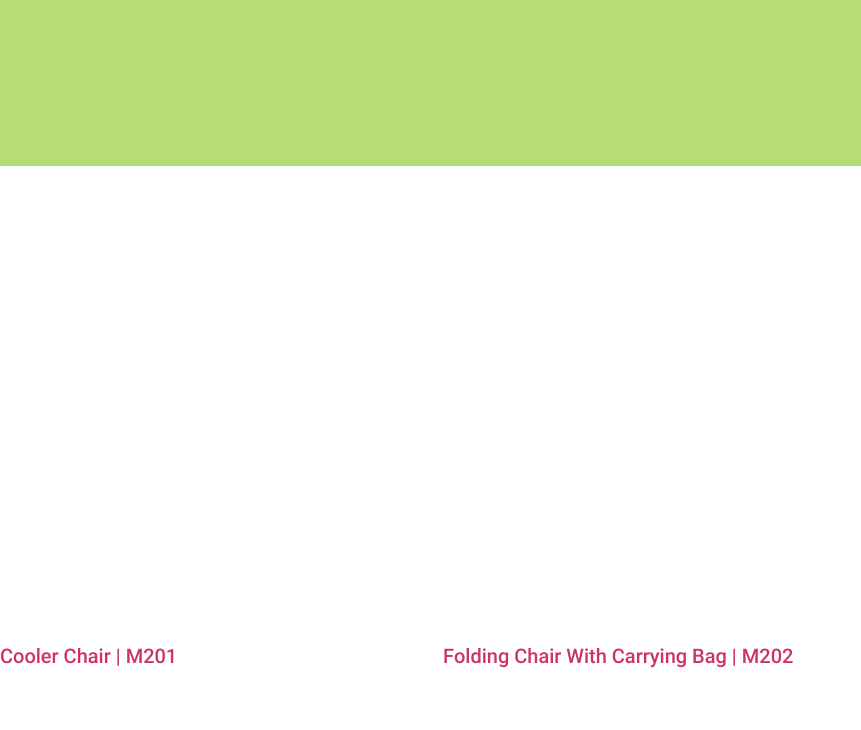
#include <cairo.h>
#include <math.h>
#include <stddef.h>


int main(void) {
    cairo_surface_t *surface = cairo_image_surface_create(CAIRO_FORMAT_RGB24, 861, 730);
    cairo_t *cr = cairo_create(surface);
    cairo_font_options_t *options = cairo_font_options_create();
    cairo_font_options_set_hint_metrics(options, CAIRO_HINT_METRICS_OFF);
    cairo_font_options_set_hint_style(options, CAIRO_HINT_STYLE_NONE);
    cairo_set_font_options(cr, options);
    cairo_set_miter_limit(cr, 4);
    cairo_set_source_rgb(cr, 1, 1, 1);
    cairo_paint(cr);
    cairo_set_source_rgb(cr, 0.714, 0.863, 0.463);
    cairo_rectangle(cr, 0, 0, 861, 166);
    cairo_fill(cr);
    cairo_select_font_face(cr, "Roboto Medium", CAIRO_FONT_SLANT_NORMAL, CAIRO_FONT_WEIGHT_NORMAL);
    cairo_set_font_size(cr, 20);
    cairo_set_source_rgb(cr, 0.8, 0.2, 0.4);
    cairo_move_to(cr, 0, 663);
    cairo_show_text(cr, "Cooler Chair | M201");
    cairo_move_to(cr, 443, 663);
    cairo_show_text(cr, "Folding Chair With Carrying Bag | M202");
    cairo_surface_write_to_png(surface, "page.png");
    cairo_font_options_destroy(options);
    cairo_destroy(cr);
    cairo_surface_destroy(surface);
    return 0;
}
